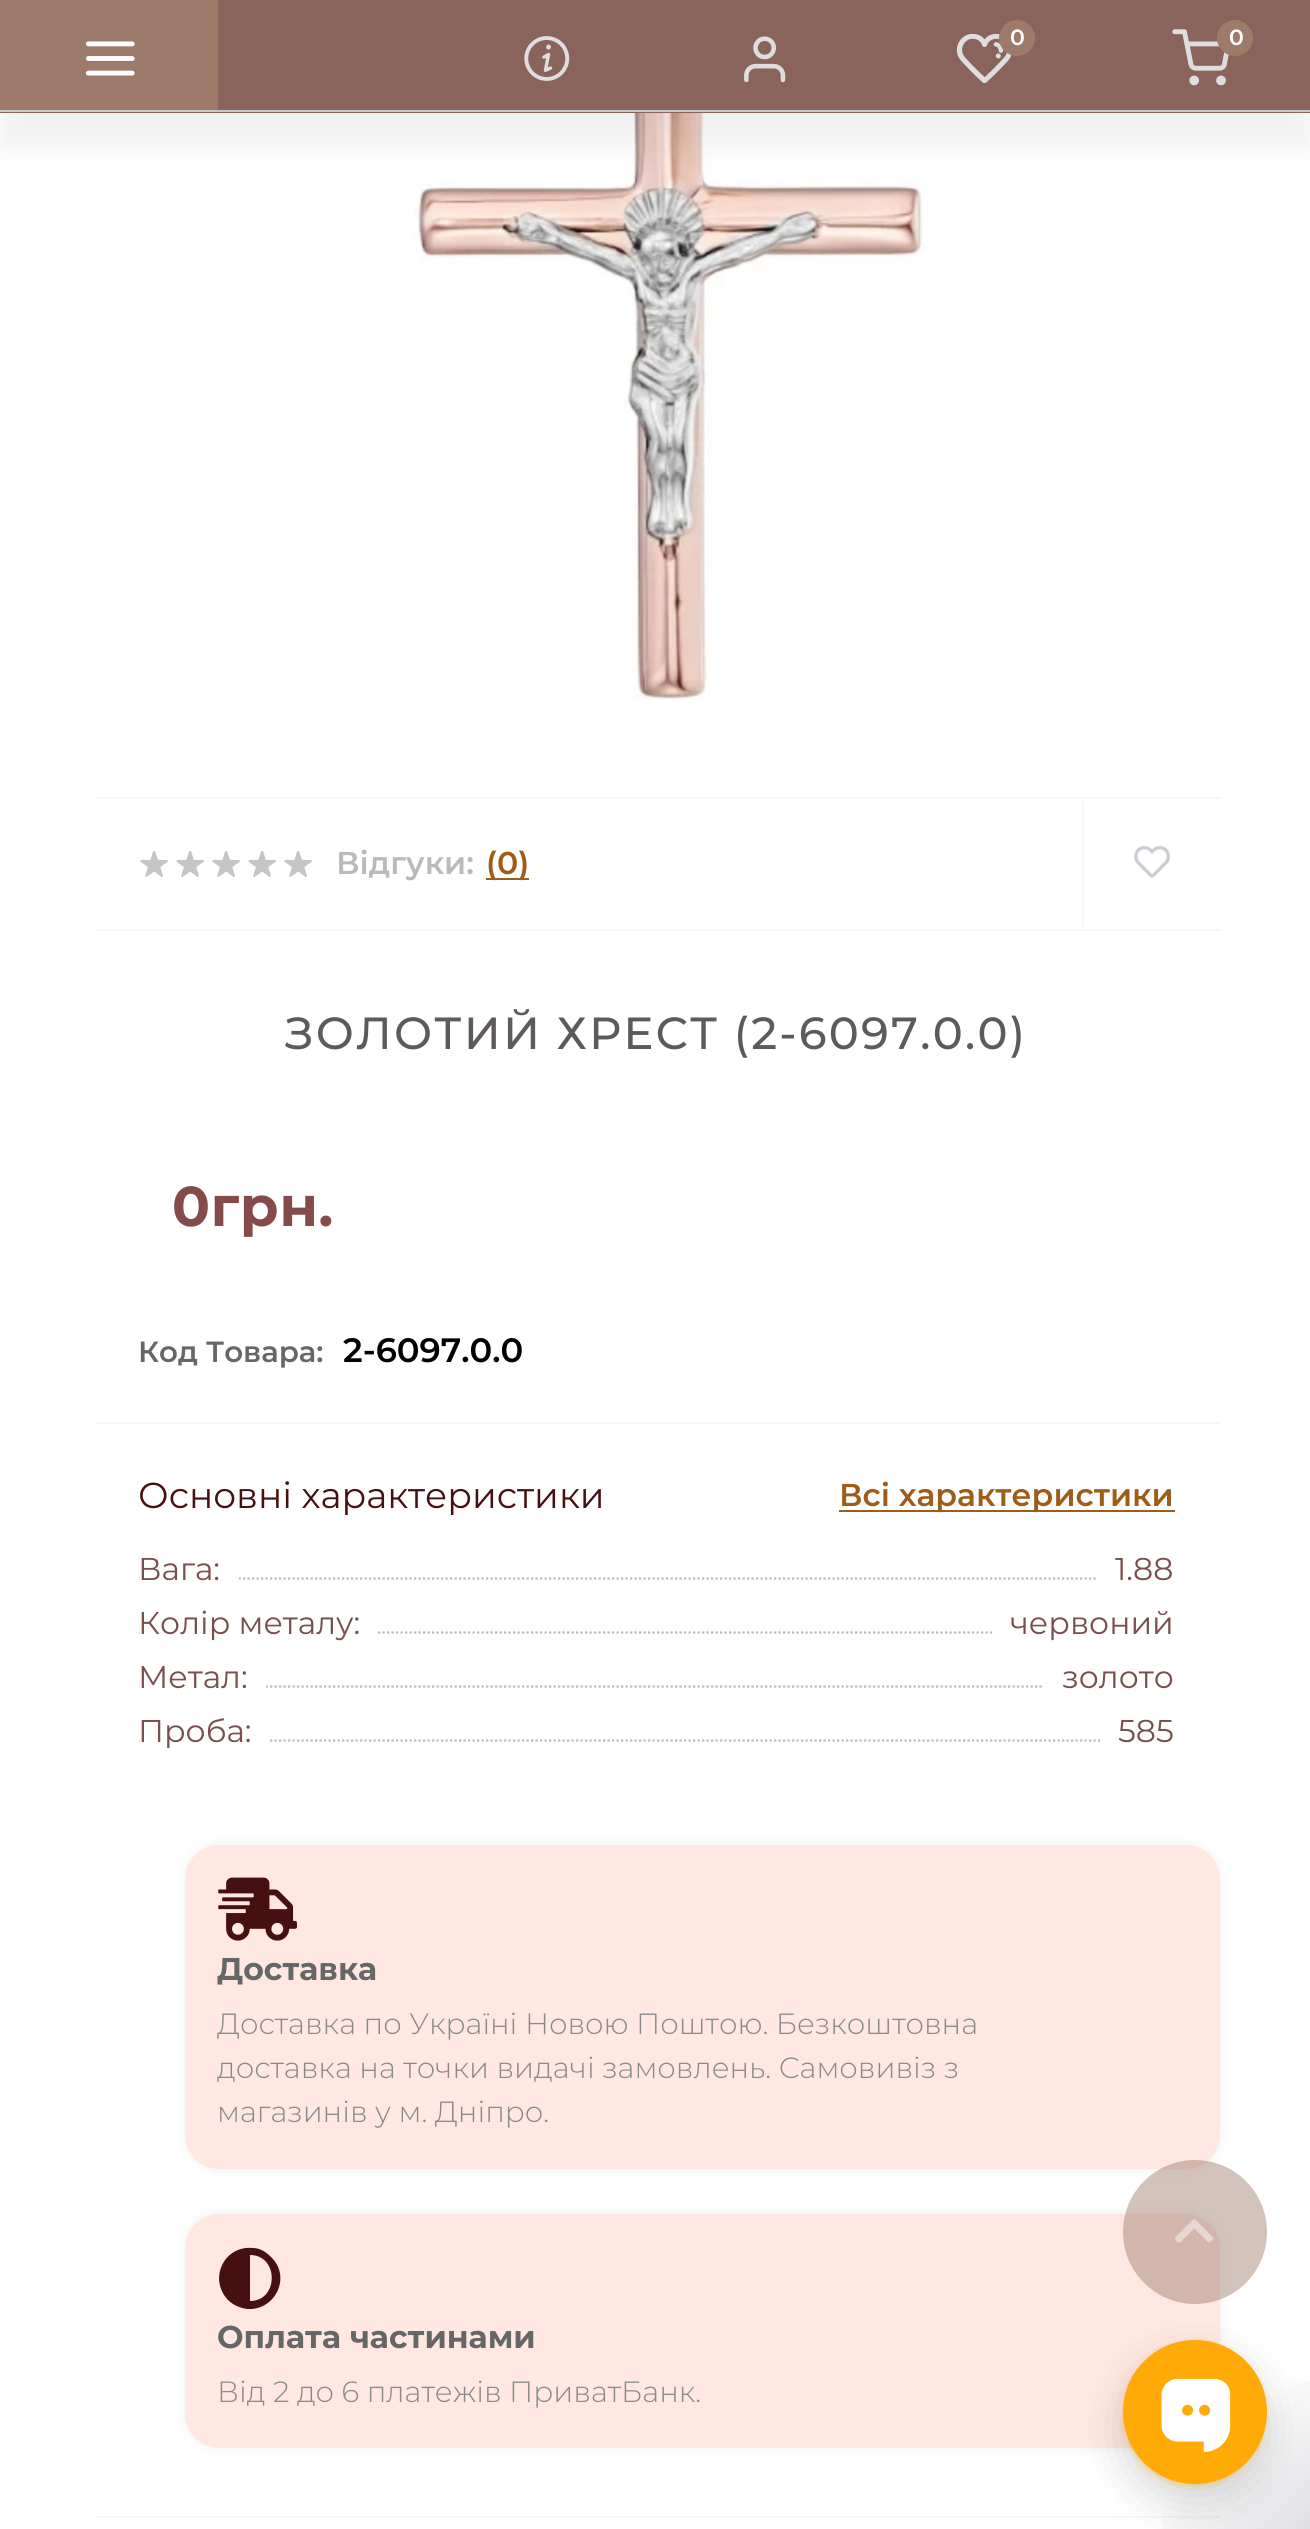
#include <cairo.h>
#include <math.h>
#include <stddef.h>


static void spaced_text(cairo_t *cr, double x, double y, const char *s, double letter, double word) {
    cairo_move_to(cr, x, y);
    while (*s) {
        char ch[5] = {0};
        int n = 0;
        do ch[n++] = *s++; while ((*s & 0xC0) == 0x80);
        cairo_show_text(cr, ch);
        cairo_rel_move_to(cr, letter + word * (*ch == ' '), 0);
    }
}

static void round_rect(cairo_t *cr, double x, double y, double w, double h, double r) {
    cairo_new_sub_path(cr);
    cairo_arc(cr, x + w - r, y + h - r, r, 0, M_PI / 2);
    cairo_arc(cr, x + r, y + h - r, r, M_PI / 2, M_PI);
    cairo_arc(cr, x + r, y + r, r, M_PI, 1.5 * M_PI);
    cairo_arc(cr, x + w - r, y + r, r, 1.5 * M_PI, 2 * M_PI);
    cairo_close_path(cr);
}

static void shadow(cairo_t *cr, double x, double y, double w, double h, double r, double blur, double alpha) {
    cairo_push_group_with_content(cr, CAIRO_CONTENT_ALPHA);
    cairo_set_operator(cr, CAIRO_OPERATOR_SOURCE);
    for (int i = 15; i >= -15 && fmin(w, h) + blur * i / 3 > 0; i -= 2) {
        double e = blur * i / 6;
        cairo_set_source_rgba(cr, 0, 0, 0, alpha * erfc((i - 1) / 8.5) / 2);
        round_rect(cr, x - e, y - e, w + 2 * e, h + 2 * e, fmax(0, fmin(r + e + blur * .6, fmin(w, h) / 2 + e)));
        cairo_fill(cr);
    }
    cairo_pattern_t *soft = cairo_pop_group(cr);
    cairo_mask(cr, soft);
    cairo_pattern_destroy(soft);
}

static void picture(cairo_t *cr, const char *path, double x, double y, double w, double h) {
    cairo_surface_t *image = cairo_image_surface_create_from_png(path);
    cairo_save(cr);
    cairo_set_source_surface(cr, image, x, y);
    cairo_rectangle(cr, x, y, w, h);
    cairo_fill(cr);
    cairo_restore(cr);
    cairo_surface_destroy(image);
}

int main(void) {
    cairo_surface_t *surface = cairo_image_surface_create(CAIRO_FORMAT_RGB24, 1310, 2529);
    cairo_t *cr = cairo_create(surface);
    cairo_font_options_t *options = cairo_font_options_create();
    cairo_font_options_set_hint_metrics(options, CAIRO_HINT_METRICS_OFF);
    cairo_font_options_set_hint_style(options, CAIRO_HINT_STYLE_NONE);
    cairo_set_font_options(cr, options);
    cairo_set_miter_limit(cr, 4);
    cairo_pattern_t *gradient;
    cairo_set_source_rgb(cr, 1, 1, 1);
    cairo_paint(cr);
    picture(cr, "img6.png", 414, 113, 511, 587);
    cairo_set_source_rgb(cr, 0, 0, 0);
    shadow(cr, 0, 34, 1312, 112, 0, 17, 0.06);
    cairo_set_source_rgb(cr, 0.533, 0.392, 0.353);
    cairo_rectangle(cr, 0, 0, 1310, 113);
    cairo_fill(cr);
    cairo_set_source_rgb(cr, 0.792, 0.788, 0.788);
    cairo_rectangle(cr, 0, 110, 1310, 2);
    cairo_fill(cr);
    cairo_set_source_rgb(cr, 0.62, 0.478, 0.416);
    cairo_rectangle(cr, 0, 0, 218, 110);
    cairo_fill(cr);
    picture(cr, "img1.png", 85, 41, 50, 35);
    picture(cr, "img2.png", 524, 36, 46, 45);
    picture(cr, "img3.png", 744, 36, 42, 47);
    picture(cr, "img4.png", 956, 34, 56, 49);
    cairo_arc(cr, 1017, 38, 18, 0, 2 * M_PI);
    cairo_fill(cr);
    cairo_select_font_face(cr, "Montserrat SemiBold", CAIRO_FONT_SLANT_NORMAL, CAIRO_FONT_WEIGHT_NORMAL);
    cairo_set_font_size(cr, 22);
    cairo_set_source_rgb(cr, 1, 1, 1);
    cairo_move_to(cr, 1010, 45);
    cairo_show_text(cr, "0");
    picture(cr, "img5.png", 1172, 29, 57, 57);
    cairo_set_source_rgb(cr, 0.62, 0.478, 0.416);
    cairo_arc(cr, 1235, 38, 18, 0, 2 * M_PI);
    cairo_fill(cr);
    cairo_set_source_rgb(cr, 1, 1, 1);
    cairo_move_to(cr, 1229, 45);
    cairo_show_text(cr, "0");
    cairo_set_source_rgb(cr, 0.965, 0.965, 0.965);
    cairo_rectangle(cr, 95, 2516, 1125, 2);
    cairo_fill(cr);
    cairo_rectangle(cr, 95, 797, 1125, 2);
    cairo_fill(cr);
    cairo_rectangle(cr, 95, 929, 1125, 2);
    cairo_fill(cr);
    picture(cr, "img7.png", 140, 851, 28, 26);
    picture(cr, "img7.png", 176, 851, 28, 26);
    picture(cr, "img7.png", 212, 851, 28, 26);
    picture(cr, "img7.png", 248, 851, 28, 26);
    picture(cr, "img7.png", 284, 851, 28, 26);
    cairo_set_font_size(cr, 31.5);
    cairo_set_source_rgb(cr, 0.729, 0.729, 0.729);
    cairo_move_to(cr, 336, 874);
    cairo_show_text(cr, "Відгуки:");
    cairo_set_source_rgb(cr, 0.616, 0.365, 0.098);
    cairo_rectangle(cr, 486, 878, 43, 2);
    cairo_fill(cr);
    cairo_move_to(cr, 486, 874);
    cairo_show_text(cr, "(0)");
    cairo_set_source_rgb(cr, 0.965, 0.965, 0.965);
    cairo_rectangle(cr, 1082, 801, 2, 126);
    cairo_fill(cr);
    picture(cr, "img8.png", 1134, 846, 36, 32);
    cairo_rectangle(cr, 95, 1422, 1125, 2);
    cairo_fill(cr);
    cairo_select_font_face(cr, "Montserrat Medium", CAIRO_FONT_SLANT_NORMAL, CAIRO_FONT_WEIGHT_NORMAL);
    cairo_set_font_size(cr, 45);
    cairo_set_source_rgb(cr, 0.369, 0.353, 0.353);
    spaced_text(cr, 285, 1049, "ЗОЛОТИЙ ХРЕСТ (2-6097.0.0)", 2.25, 0);
    cairo_select_font_face(cr, "Montserrat", CAIRO_FONT_SLANT_NORMAL, CAIRO_FONT_WEIGHT_BOLD);
    cairo_set_font_size(cr, 56);
    cairo_set_source_rgb(cr, 0.522, 0.29, 0.29);
    spaced_text(cr, 172, 1226, "0грн.", 0.5, 0);
    cairo_select_font_face(cr, "Montserrat SemiBold", CAIRO_FONT_SLANT_NORMAL, CAIRO_FONT_WEIGHT_NORMAL);
    cairo_set_font_size(cr, 29.25);
    cairo_set_source_rgb(cr, 0.4, 0.4, 0.4);
    cairo_move_to(cr, 138, 1362);
    cairo_show_text(cr, "Код Товара:");
    cairo_set_font_size(cr, 33.75);
    cairo_set_source_rgb(cr, 0, 0, 0);
    cairo_move_to(cr, 343, 1362);
    cairo_show_text(cr, "2-6097.0.0");
    cairo_select_font_face(cr, "Montserrat", CAIRO_FONT_SLANT_NORMAL, CAIRO_FONT_WEIGHT_NORMAL);
    cairo_set_font_size(cr, 36);
    cairo_set_source_rgb(cr, 0.275, 0.063, 0.063);
    cairo_move_to(cr, 138, 1508);
    cairo_show_text(cr, "Основні характеристики");
    cairo_set_source_rgb(cr, 0.616, 0.365, 0.098);
    cairo_rectangle(cr, 839, 1510, 336, 2);
    cairo_fill(cr);
    cairo_select_font_face(cr, "Montserrat SemiBold", CAIRO_FONT_SLANT_NORMAL, CAIRO_FONT_WEIGHT_NORMAL);
    cairo_set_font_size(cr, 31.5);
    cairo_move_to(cr, 839, 1506);
    cairo_show_text(cr, "Всі характеристики");
    cairo_new_path(cr);
    cairo_move_to(cr, 139.5, 1578.5);
    cairo_line_to(cr, 1174.5, 1578.5);
    cairo_set_source_rgb(cr, 0.729, 0.729, 0.729);
    cairo_set_line_width(cr, 2.2);
    cairo_set_dash(cr, (double[]){2.25, 2.25}, 2, 0);
    cairo_stroke(cr);
    cairo_set_source_rgb(cr, 1, 1, 1);
    cairo_rectangle(cr, 140, 1577, 99, 3);
    cairo_fill(cr);
    cairo_select_font_face(cr, "Montserrat", CAIRO_FONT_SLANT_NORMAL, CAIRO_FONT_WEIGHT_NORMAL);
    cairo_set_source_rgb(cr, 0.467, 0.314, 0.298);
    cairo_move_to(cr, 138, 1580);
    cairo_show_text(cr, "Вага:");
    cairo_set_source_rgb(cr, 1, 1, 1);
    cairo_rectangle(cr, 1098, 1577, 75, 3);
    cairo_fill(cr);
    cairo_set_source_rgb(cr, 0.467, 0.314, 0.298);
    cairo_move_to(cr, 1115, 1580);
    cairo_show_text(cr, "1.88");
    cairo_new_path(cr);
    cairo_move_to(cr, 139.5, 1632.5);
    cairo_line_to(cr, 1174.5, 1632.5);
    cairo_set_source_rgb(cr, 0.729, 0.729, 0.729);
    cairo_stroke(cr);
    cairo_set_source_rgb(cr, 1, 1, 1);
    cairo_rectangle(cr, 140, 1631, 236, 3);
    cairo_fill(cr);
    cairo_set_source_rgb(cr, 0.467, 0.314, 0.298);
    cairo_move_to(cr, 138, 1634);
    cairo_show_text(cr, "Колір металу:");
    cairo_set_source_rgb(cr, 1, 1, 1);
    cairo_rectangle(cr, 992, 1631, 181, 3);
    cairo_fill(cr);
    cairo_set_source_rgb(cr, 0.467, 0.314, 0.298);
    cairo_move_to(cr, 1010, 1634);
    cairo_show_text(cr, "червоний");
    cairo_new_path(cr);
    cairo_move_to(cr, 139.5, 1686.5);
    cairo_line_to(cr, 1174.5, 1686.5);
    cairo_set_source_rgb(cr, 0.729, 0.729, 0.729);
    cairo_stroke(cr);
    cairo_set_source_rgb(cr, 1, 1, 1);
    cairo_rectangle(cr, 140, 1685, 126, 3);
    cairo_fill(cr);
    cairo_set_source_rgb(cr, 0.467, 0.314, 0.298);
    cairo_move_to(cr, 138, 1688);
    cairo_show_text(cr, "Метал:");
    cairo_set_source_rgb(cr, 1, 1, 1);
    cairo_rectangle(cr, 1044, 1685, 129, 3);
    cairo_fill(cr);
    cairo_set_source_rgb(cr, 0.467, 0.314, 0.298);
    cairo_move_to(cr, 1062, 1688);
    cairo_show_text(cr, "золото");
    cairo_new_path(cr);
    cairo_move_to(cr, 139.5, 1740.5);
    cairo_line_to(cr, 1174.5, 1740.5);
    cairo_set_source_rgb(cr, 0.729, 0.729, 0.729);
    cairo_stroke(cr);
    cairo_set_source_rgb(cr, 1, 1, 1);
    cairo_rectangle(cr, 140, 1739, 128, 3);
    cairo_fill(cr);
    cairo_set_source_rgb(cr, 0.467, 0.314, 0.298);
    cairo_move_to(cr, 138, 1742);
    cairo_show_text(cr, "Проба:");
    cairo_set_source_rgb(cr, 1, 1, 1);
    cairo_rectangle(cr, 1100, 1739, 73, 3);
    cairo_fill(cr);
    cairo_set_source_rgb(cr, 0.467, 0.314, 0.298);
    cairo_move_to(cr, 1118, 1742);
    cairo_show_text(cr, "585");
    cairo_set_source_rgb(cr, 0.941, 0.941, 0.941);
    shadow(cr, 185, 1845, 1035, 324, 34, 5.5, 1);
    cairo_set_source_rgb(cr, 1, 0.91, 0.882);
    round_rect(cr, 185, 1845, 1035, 324, 34);
    cairo_fill(cr);
    picture(cr, "img9.png", 218, 1877, 79, 64);
    cairo_select_font_face(cr, "Montserrat", CAIRO_FONT_SLANT_NORMAL, CAIRO_FONT_WEIGHT_BOLD);
    cairo_set_source_rgb(cr, 0.4, 0.4, 0.4);
    cairo_move_to(cr, 217, 1980);
    cairo_show_text(cr, "Доставка");
    cairo_select_font_face(cr, "Montserrat Light", CAIRO_FONT_SLANT_NORMAL, CAIRO_FONT_WEIGHT_NORMAL);
    cairo_set_font_size(cr, 29.25);
    cairo_set_source_rgb(cr, 0.537, 0.537, 0.537);
    cairo_move_to(cr, 217, 2034);
    cairo_show_text(cr, "Доставка по Україні Новою Поштою. Безкоштовна");
    cairo_move_to(cr, 217, 2078);
    cairo_show_text(cr, "доставка на точки видачі замовлень. Самовивіз з");
    cairo_move_to(cr, 217, 2122);
    cairo_show_text(cr, "магазинів у м. Дніпро.");
    cairo_set_source_rgb(cr, 0.941, 0.941, 0.941);
    shadow(cr, 185, 2214, 1035, 234, 34, 5.5, 1);
    cairo_set_source_rgb(cr, 1, 0.91, 0.882);
    round_rect(cr, 185, 2214, 1035, 234, 34);
    cairo_fill(cr);
    cairo_set_source_rgb(cr, 0.275, 0.063, 0.063);
    cairo_new_path(cr);
    cairo_move_to(cr, 228, 2300);
    cairo_curve_to(cr, 208, 2279, 224, 2245, 253, 2248);
    cairo_curve_to(cr, 260, 2248, 266, 2252, 271, 2257);
    cairo_curve_to(cr, 292, 2277, 275, 2311, 247, 2309);
    cairo_curve_to(cr, 240, 2308, 233, 2305, 228, 2300);
    cairo_close_path(cr);
    cairo_move_to(cr, 250, 2301);
    cairo_curve_to(cr, 279, 2301, 279, 2255, 250, 2255);
    cairo_close_path(cr);
    cairo_fill(cr);
    cairo_select_font_face(cr, "Montserrat", CAIRO_FONT_SLANT_NORMAL, CAIRO_FONT_WEIGHT_BOLD);
    cairo_set_font_size(cr, 31.5);
    cairo_set_source_rgb(cr, 0.4, 0.4, 0.4);
    cairo_move_to(cr, 217, 2348);
    cairo_show_text(cr, "Оплата частинами");
    cairo_select_font_face(cr, "Montserrat Light", CAIRO_FONT_SLANT_NORMAL, CAIRO_FONT_WEIGHT_NORMAL);
    cairo_set_font_size(cr, 29.25);
    cairo_set_source_rgb(cr, 0.537, 0.537, 0.537);
    cairo_move_to(cr, 217, 2402);
    cairo_show_text(cr, "Від 2 до 6 платежів ПриватБанк.");
    cairo_set_source_rgba(cr, 0.62, 0.478, 0.416, 0.45);
    cairo_new_path(cr);
    cairo_arc(cr, 1195, 2232, 72, 0, 2 * M_PI);
    cairo_fill(cr);
    picture(cr, "img10.png", 1175, 2219, 39, 24);
    gradient = cairo_pattern_create_linear(1087, 2304, 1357, 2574);
    cairo_pattern_add_color_stop_rgba(gradient, 0.5, 0.055, 0.055, 0.161, 0);
    cairo_pattern_add_color_stop_rgba(gradient, 1, 0.055, 0.055, 0.161, 0.2);
    cairo_set_source(cr, gradient);
    cairo_pattern_destroy(gradient);
    cairo_rectangle(cr, 1162, 2381, 148, 148);
    cairo_fill(cr);
    cairo_set_source_rgb(cr, 0, 0, 0);
    shadow(cr, 1123, 2358, 144, 144, 72, 22.5, 0.16);
    cairo_set_source_rgb(cr, 1, 0.667, 0.024);
    shadow(cr, 1127, 2347, 135, 135, 67.5, 4.5, 1);
    cairo_set_source_rgb(cr, 1, 0.667, 0.024);
    cairo_arc(cr, 1195, 2412, 72, 0, 2 * M_PI);
    cairo_fill(cr);
    picture(cr, "img11.png", 1161, 2378, 70, 74);
    cairo_surface_write_to_png(surface, "page.png");
    cairo_font_options_destroy(options);
    cairo_destroy(cr);
    cairo_surface_destroy(surface);
    return 0;
}
